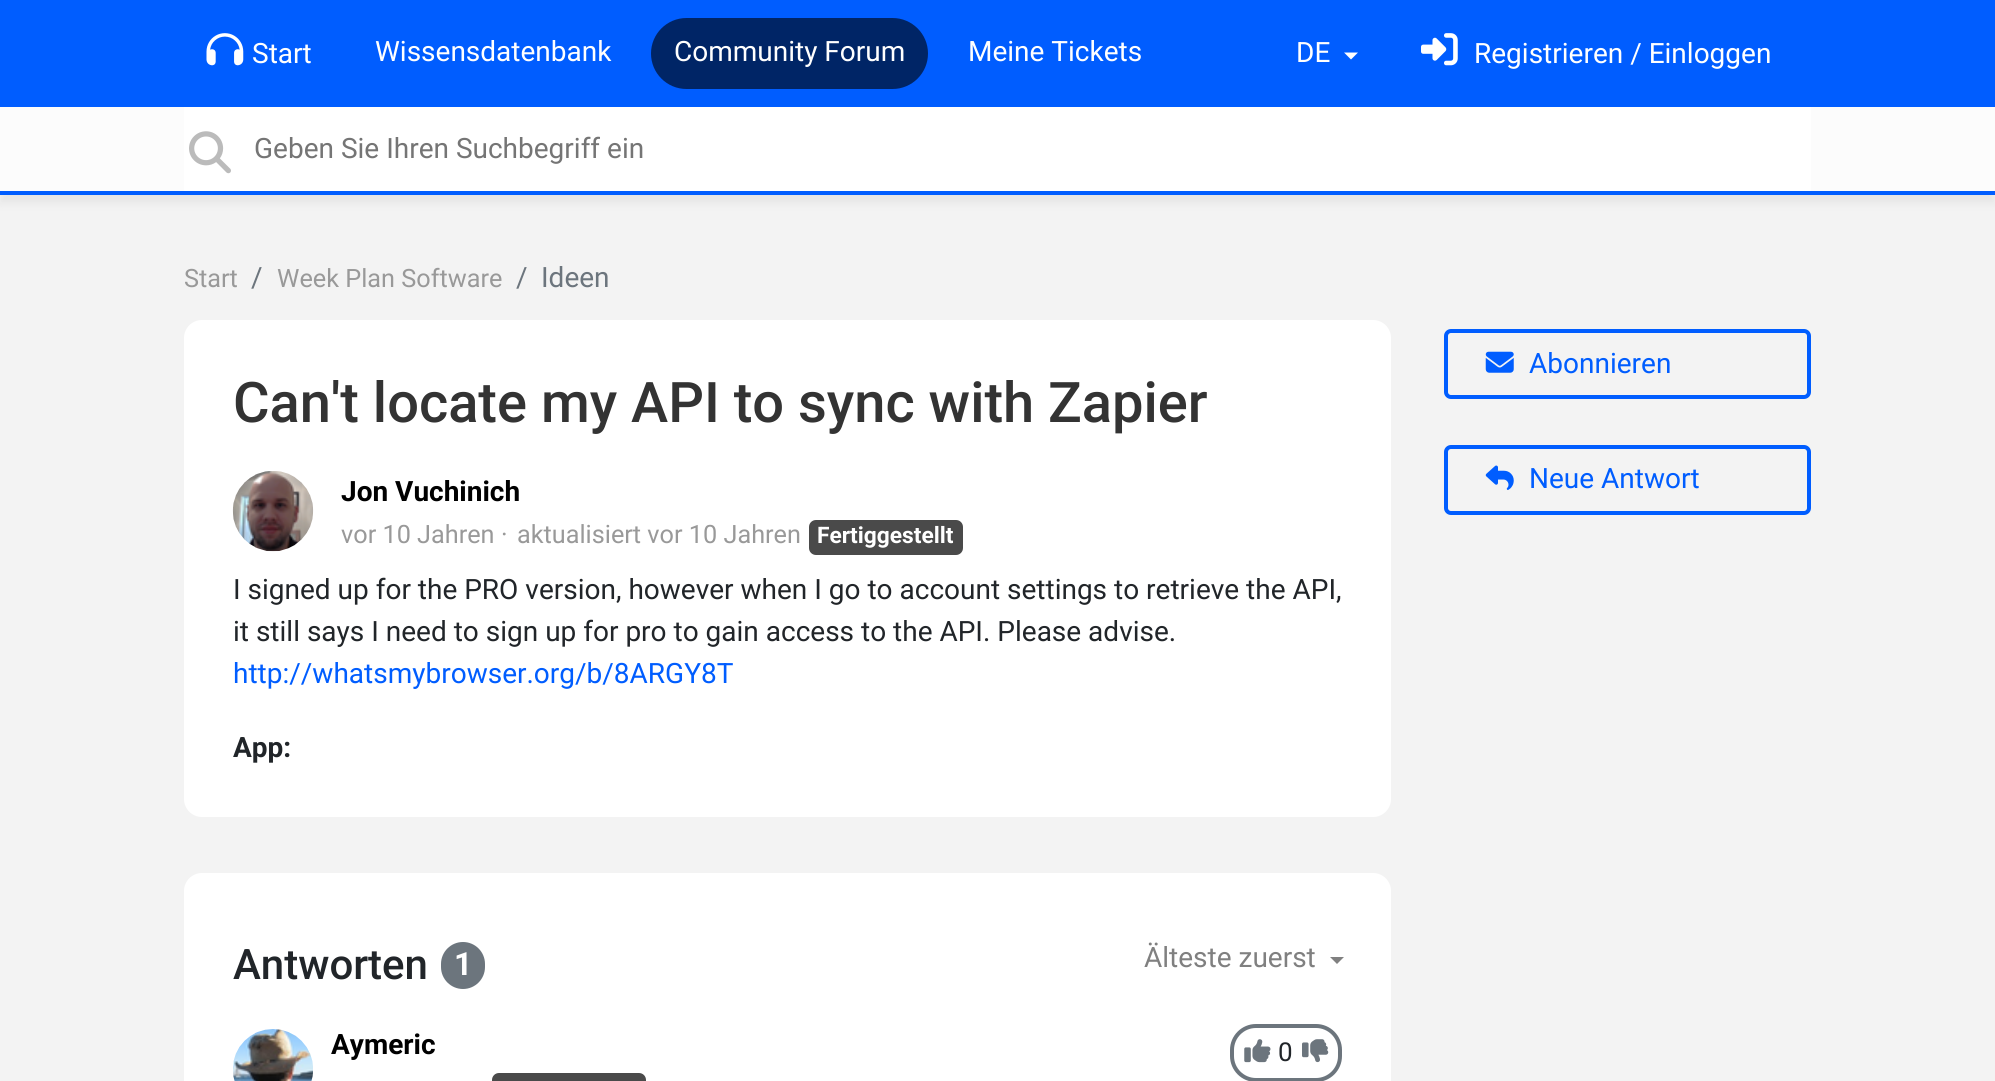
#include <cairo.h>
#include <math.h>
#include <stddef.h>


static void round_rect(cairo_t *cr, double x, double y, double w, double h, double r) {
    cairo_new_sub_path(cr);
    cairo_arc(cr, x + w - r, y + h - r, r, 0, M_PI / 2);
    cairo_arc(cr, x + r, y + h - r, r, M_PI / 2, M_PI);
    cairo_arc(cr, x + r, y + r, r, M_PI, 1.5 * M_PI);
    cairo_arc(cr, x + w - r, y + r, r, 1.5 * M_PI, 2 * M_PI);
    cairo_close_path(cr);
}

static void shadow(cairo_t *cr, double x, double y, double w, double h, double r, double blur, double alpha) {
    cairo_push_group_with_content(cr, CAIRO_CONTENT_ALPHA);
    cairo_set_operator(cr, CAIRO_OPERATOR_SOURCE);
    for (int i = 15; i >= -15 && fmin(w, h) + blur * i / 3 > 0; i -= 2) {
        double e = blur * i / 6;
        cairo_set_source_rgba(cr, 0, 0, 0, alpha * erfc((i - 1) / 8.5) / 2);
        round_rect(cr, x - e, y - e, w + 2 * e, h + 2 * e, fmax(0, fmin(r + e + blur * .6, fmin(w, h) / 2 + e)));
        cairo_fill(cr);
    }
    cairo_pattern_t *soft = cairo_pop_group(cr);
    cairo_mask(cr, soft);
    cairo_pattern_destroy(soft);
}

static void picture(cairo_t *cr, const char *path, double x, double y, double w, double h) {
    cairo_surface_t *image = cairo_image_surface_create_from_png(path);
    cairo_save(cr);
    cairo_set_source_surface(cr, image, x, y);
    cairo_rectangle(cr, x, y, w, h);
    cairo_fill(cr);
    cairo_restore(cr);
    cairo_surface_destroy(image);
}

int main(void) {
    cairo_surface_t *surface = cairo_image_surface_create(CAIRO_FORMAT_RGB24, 1995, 1081);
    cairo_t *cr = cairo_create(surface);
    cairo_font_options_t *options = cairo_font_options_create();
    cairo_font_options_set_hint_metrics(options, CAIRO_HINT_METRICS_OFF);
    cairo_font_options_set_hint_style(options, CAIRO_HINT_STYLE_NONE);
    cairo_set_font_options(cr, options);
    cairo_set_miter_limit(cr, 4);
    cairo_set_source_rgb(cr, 0.953, 0.953, 0.953);
    cairo_paint(cr);
    cairo_set_source_rgb(cr, 0, 0.365, 1);
    cairo_rectangle(cr, 0, 0, 1995, 107);
    cairo_fill(cr);
    picture(cr, "img1.png", 206, 33, 38, 33);
    cairo_select_font_face(cr, "Roboto", CAIRO_FONT_SLANT_NORMAL, CAIRO_FONT_WEIGHT_NORMAL);
    cairo_set_font_size(cr, 28);
    cairo_set_source_rgb(cr, 1, 1, 1);
    cairo_move_to(cr, 252, 63);
    cairo_show_text(cr, "Start");
    cairo_move_to(cr, 375, 61);
    cairo_show_text(cr, "Wissensdatenbank");
    cairo_set_source_rgb(cr, 0, 0.145, 0.4);
    round_rect(cr, 651, 18, 277, 71, 35.5);
    cairo_fill(cr);
    cairo_set_source_rgb(cr, 1, 1, 1);
    cairo_move_to(cr, 674, 61);
    cairo_show_text(cr, "Community Forum");
    cairo_move_to(cr, 968, 61);
    cairo_show_text(cr, "Meine Tickets");
    cairo_move_to(cr, 1296, 62);
    cairo_show_text(cr, "DE");
    cairo_new_path(cr);
    cairo_move_to(cr, 1344, 52.5);
    cairo_line_to(cr, 1358, 52.5);
    cairo_line_to(cr, 1351, 59.5);
    cairo_close_path(cr);
    cairo_fill(cr);
    picture(cr, "img2.png", 1421, 33, 37, 33);
    cairo_move_to(cr, 1474, 63);
    cairo_show_text(cr, "Registrieren / Einloggen");
    cairo_set_source_rgb(cr, 0.392, 0.392, 0.392);
    shadow(cr, 0, 116, 1995, 87, 0, 4.5, 0.1);
    cairo_set_source_rgb(cr, 0.988, 0.988, 0.988);
    cairo_rectangle(cr, 0, 107, 1995, 84);
    cairo_fill(cr);
    cairo_set_source_rgb(cr, 0, 0.365, 1);
    cairo_rectangle(cr, 0, 191, 1995, 4);
    cairo_fill(cr);
    cairo_set_source_rgb(cr, 1, 1, 1);
    cairo_rectangle(cr, 184, 107, 1627, 84);
    cairo_fill(cr);
    picture(cr, "img3.png", 189, 131, 42, 43);
    cairo_set_source_rgb(cr, 0.459, 0.459, 0.459);
    cairo_move_to(cr, 254, 158);
    cairo_show_text(cr, "Geben Sie Ihren Suchbegriff ein");
    cairo_set_font_size(cr, 25.25);
    cairo_set_source_rgb(cr, 0.6, 0.6, 0.6);
    cairo_move_to(cr, 184, 287);
    cairo_show_text(cr, "Start");
    cairo_set_font_size(cr, 28);
    cairo_set_source_rgb(cr, 0.424, 0.459, 0.49);
    cairo_move_to(cr, 251, 287);
    cairo_show_text(cr, "/");
    cairo_set_font_size(cr, 25.25);
    cairo_set_source_rgb(cr, 0.6, 0.6, 0.6);
    cairo_move_to(cr, 277, 287);
    cairo_show_text(cr, "Week Plan Software");
    cairo_set_font_size(cr, 28);
    cairo_set_source_rgb(cr, 0.424, 0.459, 0.49);
    cairo_move_to(cr, 516, 287);
    cairo_show_text(cr, "/");
    cairo_move_to(cr, 541, 287);
    cairo_show_text(cr, "Ideen");
    cairo_set_source_rgb(cr, 1, 1, 1);
    round_rect(cr, 184, 320, 1207, 497, 18);
    cairo_fill(cr);
    cairo_select_font_face(cr, "Roboto Medium", CAIRO_FONT_SLANT_NORMAL, CAIRO_FONT_WEIGHT_NORMAL);
    cairo_set_font_size(cr, 56);
    cairo_set_source_rgb(cr, 0.2, 0.2, 0.2);
    cairo_move_to(cr, 233, 422);
    cairo_show_text(cr, "Can't locate my API to sync with Zapier");
    picture(cr, "img4.png", 232, 471, 82, 81);
    cairo_select_font_face(cr, "Roboto", CAIRO_FONT_SLANT_NORMAL, CAIRO_FONT_WEIGHT_BOLD);
    cairo_set_font_size(cr, 28);
    cairo_set_source_rgb(cr, 0, 0, 0);
    cairo_move_to(cr, 341, 501);
    cairo_show_text(cr, "Jon Vuchinich");
    cairo_select_font_face(cr, "Roboto", CAIRO_FONT_SLANT_NORMAL, CAIRO_FONT_WEIGHT_NORMAL);
    cairo_set_font_size(cr, 25.25);
    cairo_set_source_rgb(cr, 0.6, 0.6, 0.6);
    cairo_move_to(cr, 341, 543);
    cairo_show_text(cr, "vor 10 Jahren");
    cairo_move_to(cr, 501, 543);
    cairo_show_text(cr, "·");
    cairo_move_to(cr, 517, 543);
    cairo_show_text(cr, "aktualisiert vor 10 Jahren");
    cairo_set_source_rgb(cr, 0.29, 0.29, 0.29);
    round_rect(cr, 809, 520, 154, 35, 7);
    cairo_fill(cr);
    cairo_select_font_face(cr, "Roboto", CAIRO_FONT_SLANT_NORMAL, CAIRO_FONT_WEIGHT_BOLD);
    cairo_set_font_size(cr, 22.75);
    cairo_set_source_rgb(cr, 1, 1, 1);
    cairo_move_to(cr, 817, 543);
    cairo_show_text(cr, "Fertiggestellt");
    cairo_select_font_face(cr, "Roboto", CAIRO_FONT_SLANT_NORMAL, CAIRO_FONT_WEIGHT_NORMAL);
    cairo_set_font_size(cr, 28);
    cairo_set_source_rgb(cr, 0.129, 0.145, 0.161);
    cairo_move_to(cr, 233, 599);
    cairo_show_text(cr, "I signed up for the PRO version, however when I go to account settings to retrieve the API,");
    cairo_move_to(cr, 233, 641);
    cairo_show_text(cr, "it still says I need to sign up for pro to gain access to the API. Please advise.");
    cairo_set_source_rgb(cr, 0, 0.365, 1);
    cairo_move_to(cr, 233, 683);
    cairo_show_text(cr, "http://whatsmybrowser.org/b/8ARGY8T");
    cairo_select_font_face(cr, "Roboto", CAIRO_FONT_SLANT_NORMAL, CAIRO_FONT_WEIGHT_BOLD);
    cairo_set_source_rgb(cr, 0.129, 0.145, 0.161);
    cairo_move_to(cr, 233, 757);
    cairo_show_text(cr, "App:");
    round_rect(cr, 1446, 331, 363, 66, 5);
    cairo_set_source_rgb(cr, 0, 0.365, 1);
    cairo_set_line_width(cr, 4);
    cairo_stroke(cr);
    picture(cr, "img5.png", 1485, 351, 29, 22);
    cairo_select_font_face(cr, "Roboto", CAIRO_FONT_SLANT_NORMAL, CAIRO_FONT_WEIGHT_NORMAL);
    cairo_move_to(cr, 1529, 373);
    cairo_show_text(cr, "Abonnieren");
    round_rect(cr, 1446, 447, 363, 66, 5);
    cairo_stroke(cr);
    picture(cr, "img6.png", 1485, 465, 29, 25);
    cairo_move_to(cr, 1529, 488);
    cairo_show_text(cr, "Neue Antwort");
    cairo_set_source_rgb(cr, 1, 1, 1);
    round_rect(cr, 184, 873, 1207, 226, 18);
    cairo_fill(cr);
    cairo_select_font_face(cr, "Roboto Medium", CAIRO_FONT_SLANT_NORMAL, CAIRO_FONT_WEIGHT_NORMAL);
    cairo_set_font_size(cr, 42);
    cairo_set_source_rgb(cr, 0.129, 0.145, 0.161);
    cairo_move_to(cr, 233, 979);
    cairo_show_text(cr, "Antworten");
    cairo_set_source_rgb(cr, 0.424, 0.459, 0.49);
    round_rect(cr, 441, 942, 44, 47, 22);
    cairo_fill(cr);
    cairo_select_font_face(cr, "Roboto", CAIRO_FONT_SLANT_NORMAL, CAIRO_FONT_WEIGHT_BOLD);
    cairo_set_font_size(cr, 32);
    cairo_set_source_rgb(cr, 1, 1, 1);
    cairo_move_to(cr, 454, 975);
    cairo_show_text(cr, "1");
    cairo_select_font_face(cr, "Roboto", CAIRO_FONT_SLANT_NORMAL, CAIRO_FONT_WEIGHT_NORMAL);
    cairo_set_font_size(cr, 28);
    cairo_set_source_rgb(cr, 0.502, 0.502, 0.502);
    cairo_move_to(cr, 1144, 967);
    cairo_show_text(cr, "Älteste zuerst");
    cairo_new_path(cr);
    cairo_move_to(cr, 1330, 957);
    cairo_line_to(cr, 1344, 957);
    cairo_line_to(cr, 1337, 964);
    cairo_close_path(cr);
    cairo_fill(cr);
    picture(cr, "img7.png", 233, 1029, 80, 52);
    cairo_select_font_face(cr, "Roboto", CAIRO_FONT_SLANT_NORMAL, CAIRO_FONT_WEIGHT_BOLD);
    cairo_set_source_rgb(cr, 0, 0, 0);
    cairo_move_to(cr, 331, 1054);
    cairo_show_text(cr, "Aymeric");
    cairo_set_source_rgb(cr, 0.29, 0.29, 0.29);
    round_rect(cr, 492, 1073, 154, 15, 7);
    cairo_fill(cr);
    round_rect(cr, 1232, 1026, 108, 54, 24);
    cairo_set_source_rgb(cr, 0.424, 0.459, 0.49);
    cairo_stroke(cr);
    picture(cr, "img8.png", 1244, 1039, 27, 24);
    cairo_select_font_face(cr, "Roboto", CAIRO_FONT_SLANT_NORMAL, CAIRO_FONT_WEIGHT_NORMAL);
    cairo_set_font_size(cr, 26);
    cairo_set_source_rgb(cr, 0.129, 0.145, 0.161);
    cairo_move_to(cr, 1278, 1061);
    cairo_show_text(cr, "0");
    picture(cr, "img9.png", 1302, 1039, 27, 24);
    cairo_surface_write_to_png(surface, "page.png");
    cairo_font_options_destroy(options);
    cairo_destroy(cr);
    cairo_surface_destroy(surface);
    return 0;
}
